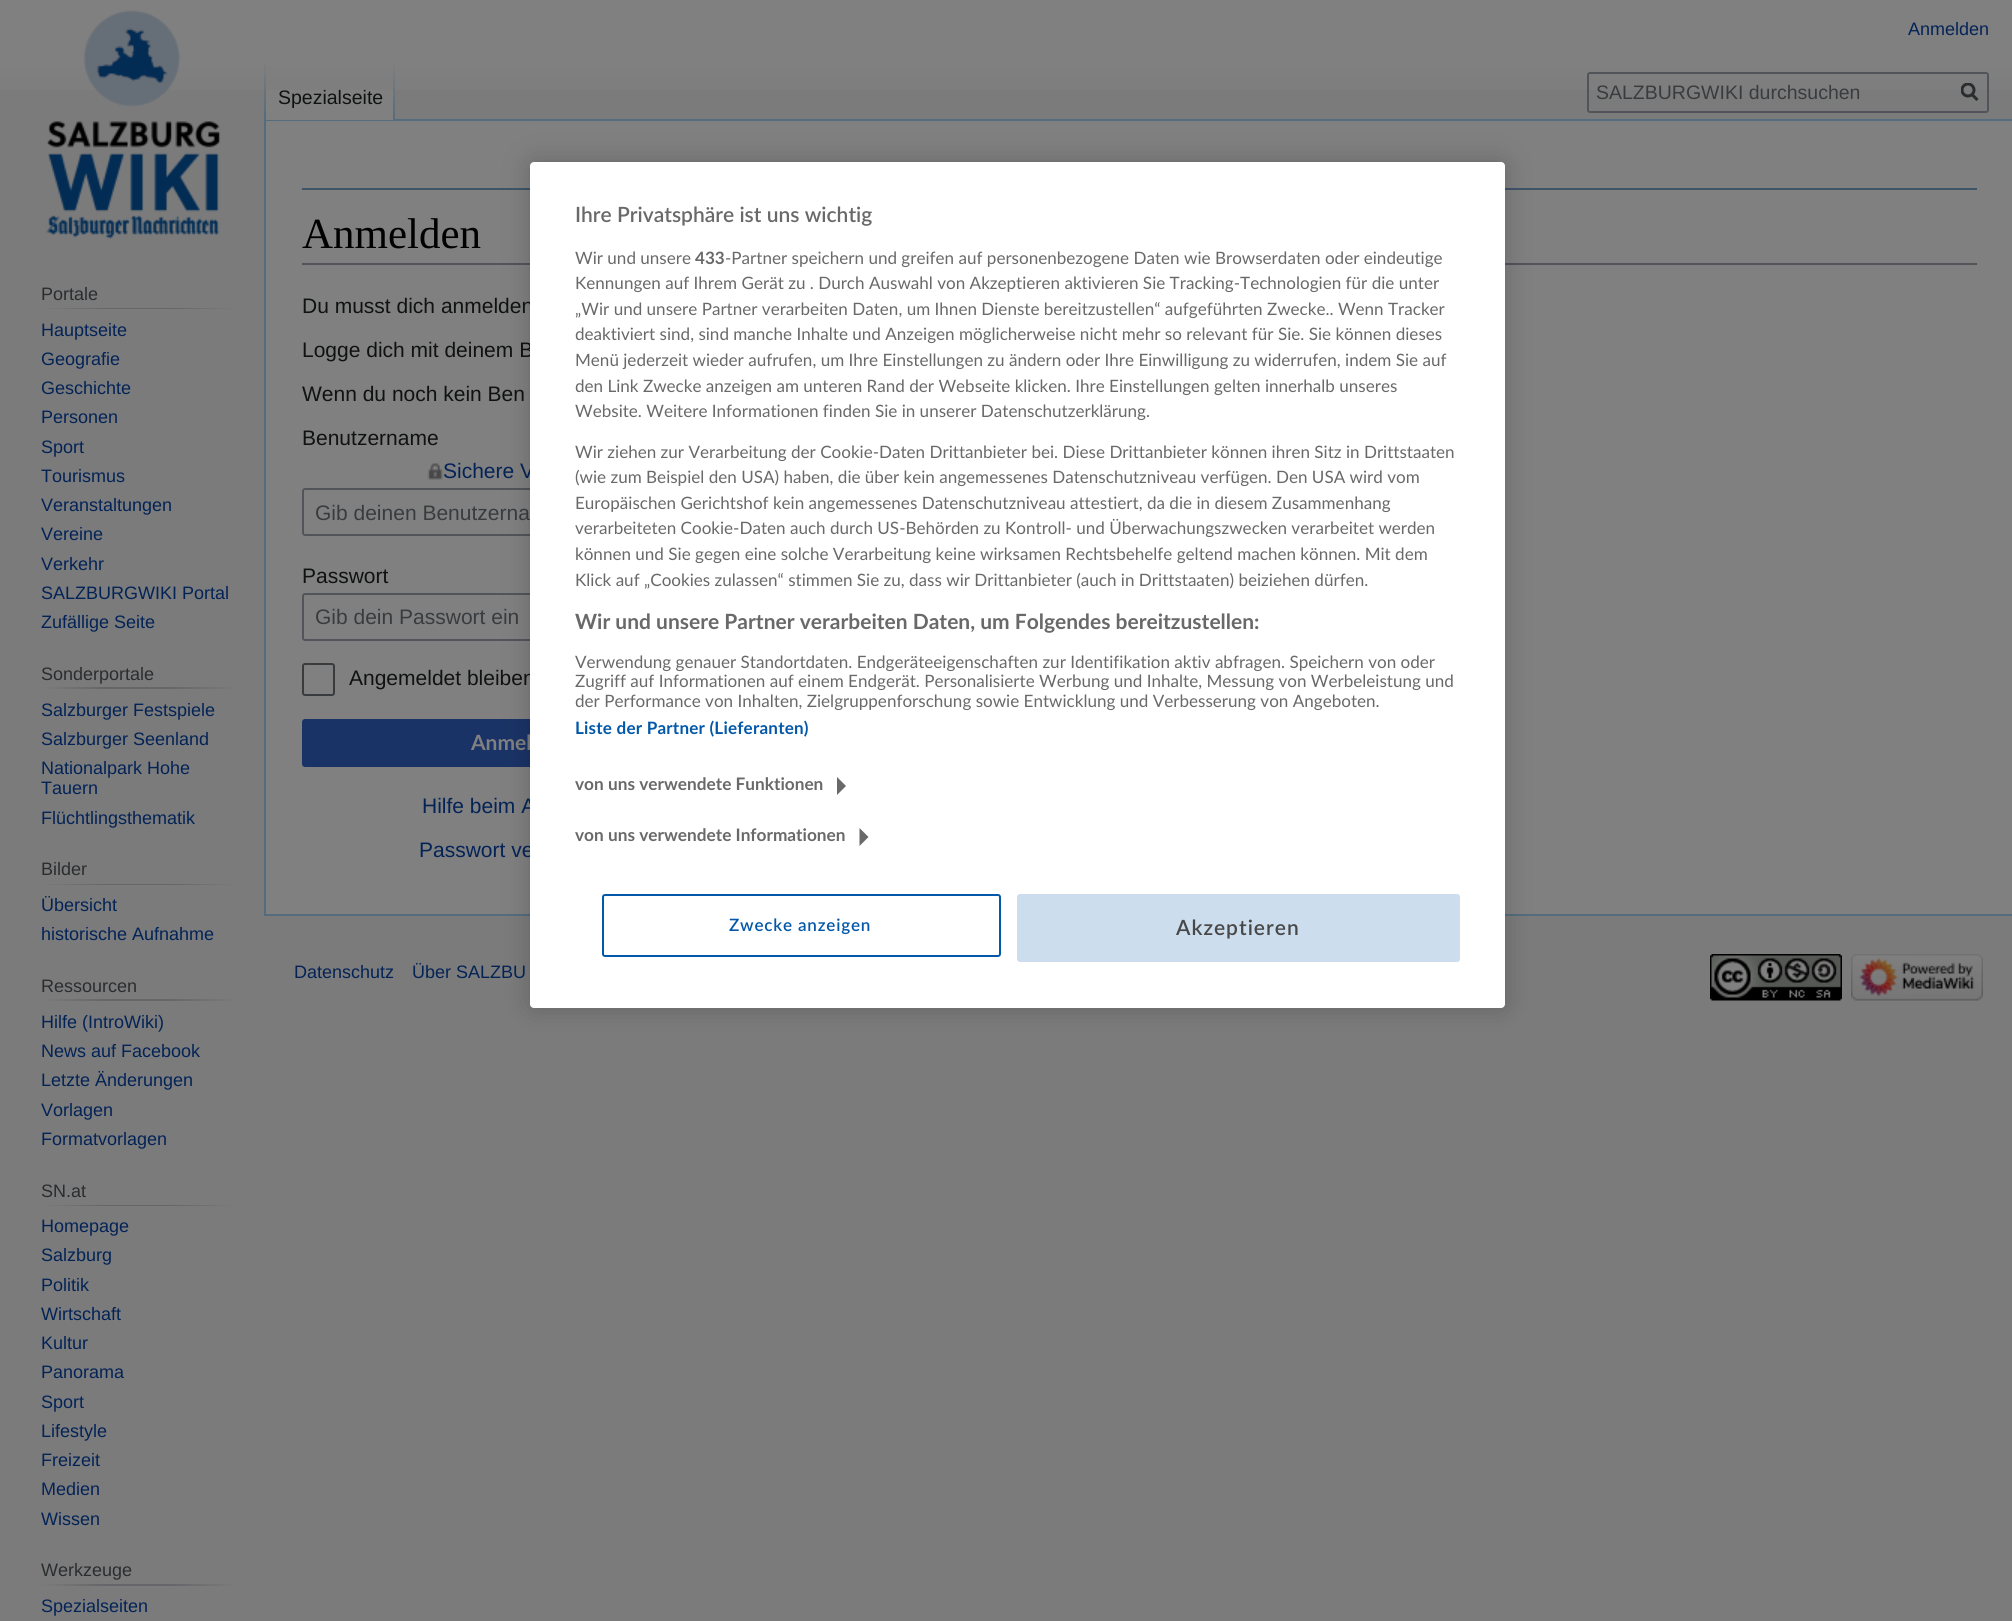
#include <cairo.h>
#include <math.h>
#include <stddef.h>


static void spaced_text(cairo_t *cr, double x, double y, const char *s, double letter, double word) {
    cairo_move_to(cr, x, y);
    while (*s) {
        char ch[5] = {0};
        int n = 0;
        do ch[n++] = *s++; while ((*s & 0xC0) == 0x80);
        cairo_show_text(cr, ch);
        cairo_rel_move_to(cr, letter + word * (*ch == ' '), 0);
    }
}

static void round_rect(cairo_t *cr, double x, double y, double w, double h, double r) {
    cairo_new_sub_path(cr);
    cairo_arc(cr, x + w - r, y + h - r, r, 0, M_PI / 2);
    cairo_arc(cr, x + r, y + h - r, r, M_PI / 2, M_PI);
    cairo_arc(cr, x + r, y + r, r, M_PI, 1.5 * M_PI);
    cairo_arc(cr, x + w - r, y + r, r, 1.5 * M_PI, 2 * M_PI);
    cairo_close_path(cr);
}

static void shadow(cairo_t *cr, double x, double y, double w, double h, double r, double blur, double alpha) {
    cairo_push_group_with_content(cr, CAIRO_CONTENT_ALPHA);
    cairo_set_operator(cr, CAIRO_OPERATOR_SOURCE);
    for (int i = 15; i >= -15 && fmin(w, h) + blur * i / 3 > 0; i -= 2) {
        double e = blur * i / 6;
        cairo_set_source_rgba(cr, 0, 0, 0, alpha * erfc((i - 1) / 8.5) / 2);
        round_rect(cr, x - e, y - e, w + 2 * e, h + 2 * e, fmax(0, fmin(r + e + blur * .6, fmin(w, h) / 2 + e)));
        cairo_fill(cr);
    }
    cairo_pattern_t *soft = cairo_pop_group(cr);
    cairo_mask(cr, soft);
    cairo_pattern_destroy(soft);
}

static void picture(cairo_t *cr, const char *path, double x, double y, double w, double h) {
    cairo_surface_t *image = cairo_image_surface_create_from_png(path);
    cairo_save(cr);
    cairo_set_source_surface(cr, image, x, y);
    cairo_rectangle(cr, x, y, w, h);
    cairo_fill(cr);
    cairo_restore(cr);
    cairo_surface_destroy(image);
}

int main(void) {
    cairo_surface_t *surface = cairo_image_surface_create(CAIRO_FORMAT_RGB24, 2012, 1621);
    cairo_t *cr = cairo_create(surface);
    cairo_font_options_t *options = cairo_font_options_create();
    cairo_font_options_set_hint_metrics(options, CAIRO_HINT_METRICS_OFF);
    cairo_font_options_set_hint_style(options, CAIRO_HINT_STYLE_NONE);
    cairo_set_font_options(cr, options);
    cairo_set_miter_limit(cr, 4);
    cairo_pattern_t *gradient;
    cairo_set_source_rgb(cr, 0.482, 0.482, 0.482);
    cairo_paint(cr);
    gradient = cairo_pattern_create_linear(1007, 0, 1007, 120);
    cairo_pattern_add_color_stop_rgba(gradient, 0.5, 0.502, 0.502, 0.502, 1);
    cairo_pattern_add_color_stop_rgba(gradient, 1, 0.482, 0.482, 0.482, 1);
    cairo_set_source(cr, gradient);
    cairo_pattern_destroy(gradient);
    cairo_rectangle(cr, 0, 0, 2012, 90);
    cairo_fill(cr);
    cairo_select_font_face(cr, "Liberation Sans", CAIRO_FONT_SLANT_NORMAL, CAIRO_FONT_WEIGHT_NORMAL);
    cairo_set_font_size(cr, 18);
    cairo_set_source_rgb(cr, 0.012, 0.137, 0.341);
    cairo_move_to(cr, 1908, 35);
    cairo_show_text(cr, "Anmelden");
    cairo_set_source_rgb(cr, 0.329, 0.424, 0.49);
    cairo_rectangle(cr, 264, 119, 1748, 2);
    cairo_fill(cr);
    cairo_rectangle(cr, 264, 914, 1748, 2);
    cairo_fill(cr);
    cairo_rectangle(cr, 264, 119, 2, 796);
    cairo_fill(cr);
    gradient = cairo_pattern_create_linear(265, 60, 265, 120);
    cairo_pattern_add_color_stop_rgba(gradient, 0, 0.329, 0.424, 0.49, 0);
    cairo_pattern_add_color_stop_rgba(gradient, 1, 0.329, 0.424, 0.49, 1);
    cairo_set_source(cr, gradient);
    cairo_pattern_destroy(gradient);
    cairo_rectangle(cr, 264, 60, 2, 60);
    cairo_fill(cr);
    cairo_set_source_rgb(cr, 0.502, 0.502, 0.502);
    cairo_rectangle(cr, 266, 90, 127, 30);
    cairo_fill(cr);
    gradient = cairo_pattern_create_linear(394, 60, 394, 120);
    cairo_pattern_add_color_stop_rgba(gradient, 0, 0.502, 0.502, 0.502, 1);
    cairo_pattern_add_color_stop_rgba(gradient, 1, 0.329, 0.424, 0.49, 1);
    cairo_set_source(cr, gradient);
    cairo_pattern_destroy(gradient);
    cairo_rectangle(cr, 393, 60, 2, 60);
    cairo_fill(cr);
    cairo_set_font_size(cr, 19.5);
    cairo_set_source_rgb(cr, 0.063, 0.067, 0.067);
    cairo_move_to(cr, 278, 104);
    cairo_show_text(cr, "Spezialseite");
    round_rect(cr, 1588, 73, 400, 39, 2);
    cairo_set_source_rgb(cr, 0.318, 0.333, 0.349);
    cairo_stroke(cr);
    cairo_set_source_rgb(cr, 0.224, 0.235, 0.247);
    cairo_move_to(cr, 1596, 99);
    cairo_show_text(cr, "SALZBURGWIKI durchsuchen");
    cairo_new_path(cr);
    cairo_move_to(cr, 1977.5, 100);
    cairo_line_to(cr, 1971.5, 94);
    cairo_set_source_rgb(cr, 0.165, 0.176, 0.184);
    cairo_set_line_width(cr, 3);
    cairo_stroke(cr);
    cairo_save(cr);
    cairo_rectangle(cr, 1961, 83, 18, 19);
    cairo_clip(cr);
    cairo_arc(cr, 1968, 90, 6, 0, 2 * M_PI);
    cairo_stroke(cr);
    cairo_restore(cr);
    picture(cr, "img1.png", 46, 10, 175, 229);
    gradient = cairo_pattern_create_linear(41, 308, 237, 308);
    cairo_pattern_add_color_stop_rgba(gradient, 0, 0.482, 0.482, 0.482, 1);
    cairo_pattern_add_color_stop_rgba(gradient, 0.33, 0.392, 0.4, 0.412, 1);
    cairo_pattern_add_color_stop_rgba(gradient, 0.66, 0.392, 0.4, 0.412, 1);
    cairo_pattern_add_color_stop_rgba(gradient, 1, 0.482, 0.482, 0.482, 1);
    cairo_set_source(cr, gradient);
    cairo_pattern_destroy(gradient);
    cairo_rectangle(cr, 41, 308, 196, 1);
    cairo_fill(cr);
    cairo_set_font_size(cr, 18);
    cairo_set_source_rgb(cr, 0.165, 0.176, 0.184);
    cairo_move_to(cr, 41, 300);
    cairo_show_text(cr, "Portale");
    cairo_set_source_rgb(cr, 0.012, 0.137, 0.341);
    cairo_move_to(cr, 41, 336);
    cairo_show_text(cr, "Hauptseite");
    cairo_move_to(cr, 41, 365);
    cairo_show_text(cr, "Geografie");
    cairo_move_to(cr, 41, 394);
    cairo_show_text(cr, "Geschichte");
    cairo_move_to(cr, 41, 423);
    cairo_show_text(cr, "Personen");
    cairo_move_to(cr, 41, 453);
    cairo_show_text(cr, "Sport");
    cairo_move_to(cr, 41, 482);
    cairo_show_text(cr, "Tourismus");
    cairo_move_to(cr, 41, 511);
    cairo_show_text(cr, "Veranstaltungen");
    cairo_move_to(cr, 41, 540);
    cairo_show_text(cr, "Vereine");
    cairo_move_to(cr, 41, 570);
    cairo_show_text(cr, "Verkehr");
    cairo_move_to(cr, 41, 599);
    cairo_show_text(cr, "SALZBURGWIKI Portal");
    cairo_move_to(cr, 41, 628);
    cairo_show_text(cr, "Zufällige Seite");
    gradient = cairo_pattern_create_linear(41, 688, 237, 688);
    cairo_pattern_add_color_stop_rgba(gradient, 0, 0.482, 0.482, 0.482, 1);
    cairo_pattern_add_color_stop_rgba(gradient, 0.33, 0.392, 0.4, 0.412, 1);
    cairo_pattern_add_color_stop_rgba(gradient, 0.66, 0.392, 0.4, 0.412, 1);
    cairo_pattern_add_color_stop_rgba(gradient, 1, 0.482, 0.482, 0.482, 1);
    cairo_set_source(cr, gradient);
    cairo_pattern_destroy(gradient);
    cairo_rectangle(cr, 41, 687, 196, 2);
    cairo_fill(cr);
    cairo_set_source_rgb(cr, 0.165, 0.176, 0.184);
    cairo_move_to(cr, 41, 680);
    cairo_show_text(cr, "Sonderportale");
    cairo_set_source_rgb(cr, 0.012, 0.137, 0.341);
    cairo_move_to(cr, 41, 716);
    cairo_show_text(cr, "Salzburger Festspiele");
    cairo_move_to(cr, 41, 745);
    cairo_show_text(cr, "Salzburger Seenland");
    cairo_move_to(cr, 41, 774);
    cairo_show_text(cr, "Nationalpark Hohe");
    cairo_move_to(cr, 41, 794);
    cairo_show_text(cr, "Tauern");
    cairo_move_to(cr, 41, 824);
    cairo_show_text(cr, "Flüchtlingsthematik");
    gradient = cairo_pattern_create_linear(41, 884, 237, 884);
    cairo_pattern_add_color_stop_rgba(gradient, 0, 0.482, 0.482, 0.482, 1);
    cairo_pattern_add_color_stop_rgba(gradient, 0.33, 0.392, 0.4, 0.412, 1);
    cairo_pattern_add_color_stop_rgba(gradient, 0.66, 0.392, 0.4, 0.412, 1);
    cairo_pattern_add_color_stop_rgba(gradient, 1, 0.482, 0.482, 0.482, 1);
    cairo_set_source(cr, gradient);
    cairo_pattern_destroy(gradient);
    cairo_rectangle(cr, 41, 884, 196, 1);
    cairo_fill(cr);
    cairo_set_source_rgb(cr, 0.165, 0.176, 0.184);
    cairo_move_to(cr, 41, 875);
    cairo_show_text(cr, "Bilder");
    cairo_set_source_rgb(cr, 0.012, 0.137, 0.341);
    cairo_move_to(cr, 41, 911);
    cairo_show_text(cr, "Übersicht");
    cairo_move_to(cr, 41, 940);
    cairo_show_text(cr, "historische Aufnahme");
    gradient = cairo_pattern_create_linear(41, 1000, 237, 1000);
    cairo_pattern_add_color_stop_rgba(gradient, 0, 0.482, 0.482, 0.482, 1);
    cairo_pattern_add_color_stop_rgba(gradient, 0.33, 0.392, 0.4, 0.412, 1);
    cairo_pattern_add_color_stop_rgba(gradient, 0.66, 0.392, 0.4, 0.412, 1);
    cairo_pattern_add_color_stop_rgba(gradient, 1, 0.482, 0.482, 0.482, 1);
    cairo_set_source(cr, gradient);
    cairo_pattern_destroy(gradient);
    cairo_rectangle(cr, 41, 999, 196, 2);
    cairo_fill(cr);
    cairo_set_source_rgb(cr, 0.165, 0.176, 0.184);
    cairo_move_to(cr, 41, 992);
    cairo_show_text(cr, "Ressourcen");
    cairo_set_source_rgb(cr, 0.012, 0.137, 0.341);
    cairo_move_to(cr, 41, 1028);
    cairo_show_text(cr, "Hilfe (IntroWiki)");
    cairo_move_to(cr, 41, 1057);
    cairo_show_text(cr, "News auf Facebook");
    cairo_move_to(cr, 41, 1086);
    cairo_show_text(cr, "Letzte Änderungen");
    cairo_move_to(cr, 41, 1116);
    cairo_show_text(cr, "Vorlagen");
    cairo_move_to(cr, 41, 1145);
    cairo_show_text(cr, "Formatvorlagen");
    gradient = cairo_pattern_create_linear(41, 1205, 237, 1205);
    cairo_pattern_add_color_stop_rgba(gradient, 0, 0.482, 0.482, 0.482, 1);
    cairo_pattern_add_color_stop_rgba(gradient, 0.33, 0.392, 0.4, 0.412, 1);
    cairo_pattern_add_color_stop_rgba(gradient, 0.66, 0.392, 0.4, 0.412, 1);
    cairo_pattern_add_color_stop_rgba(gradient, 1, 0.482, 0.482, 0.482, 1);
    cairo_set_source(cr, gradient);
    cairo_pattern_destroy(gradient);
    cairo_rectangle(cr, 41, 1205, 196, 1);
    cairo_fill(cr);
    cairo_set_source_rgb(cr, 0.165, 0.176, 0.184);
    cairo_move_to(cr, 41, 1197);
    cairo_show_text(cr, "SN.at");
    cairo_set_source_rgb(cr, 0.012, 0.137, 0.341);
    cairo_move_to(cr, 41, 1232);
    cairo_show_text(cr, "Homepage");
    cairo_move_to(cr, 41, 1261);
    cairo_show_text(cr, "Salzburg");
    cairo_move_to(cr, 41, 1291);
    cairo_show_text(cr, "Politik");
    cairo_move_to(cr, 41, 1320);
    cairo_show_text(cr, "Wirtschaft");
    cairo_move_to(cr, 41, 1349);
    cairo_show_text(cr, "Kultur");
    cairo_move_to(cr, 41, 1378);
    cairo_show_text(cr, "Panorama");
    cairo_move_to(cr, 41, 1408);
    cairo_show_text(cr, "Sport");
    cairo_move_to(cr, 41, 1437);
    cairo_show_text(cr, "Lifestyle");
    cairo_move_to(cr, 41, 1466);
    cairo_show_text(cr, "Freizeit");
    cairo_move_to(cr, 41, 1495);
    cairo_show_text(cr, "Medien");
    cairo_move_to(cr, 41, 1525);
    cairo_show_text(cr, "Wissen");
    gradient = cairo_pattern_create_linear(41, 1585, 237, 1585);
    cairo_pattern_add_color_stop_rgba(gradient, 0, 0.482, 0.482, 0.482, 1);
    cairo_pattern_add_color_stop_rgba(gradient, 0.33, 0.392, 0.4, 0.412, 1);
    cairo_pattern_add_color_stop_rgba(gradient, 0.66, 0.392, 0.4, 0.412, 1);
    cairo_pattern_add_color_stop_rgba(gradient, 1, 0.482, 0.482, 0.482, 1);
    cairo_set_source(cr, gradient);
    cairo_pattern_destroy(gradient);
    cairo_rectangle(cr, 41, 1584, 196, 2);
    cairo_fill(cr);
    cairo_set_source_rgb(cr, 0.165, 0.176, 0.184);
    cairo_move_to(cr, 41, 1576);
    cairo_show_text(cr, "Werkzeuge");
    cairo_set_source_rgb(cr, 0.012, 0.137, 0.341);
    cairo_move_to(cr, 41, 1612);
    cairo_show_text(cr, "Spezialseiten");
    cairo_set_source_rgb(cr, 0.502, 0.502, 0.502);
    cairo_rectangle(cr, 266, 121, 1746, 793);
    cairo_fill(cr);
    cairo_set_source_rgb(cr, 0.251, 0.329, 0.408);
    cairo_rectangle(cr, 302, 188, 1675, 2);
    cairo_fill(cr);
    cairo_set_source_rgb(cr, 0.318, 0.333, 0.349);
    cairo_rectangle(cr, 302, 263, 1675, 2);
    cairo_fill(cr);
    cairo_select_font_face(cr, "Liberation Serif", CAIRO_FONT_SLANT_NORMAL, CAIRO_FONT_WEIGHT_NORMAL);
    cairo_set_font_size(cr, 43);
    cairo_set_source_rgb(cr, 0, 0, 0);
    cairo_move_to(cr, 302, 248);
    cairo_show_text(cr, "Anmelden");
    cairo_select_font_face(cr, "Liberation Sans", CAIRO_FONT_SLANT_NORMAL, CAIRO_FONT_WEIGHT_NORMAL);
    cairo_set_font_size(cr, 21);
    cairo_set_source_rgb(cr, 0.063, 0.067, 0.067);
    cairo_move_to(cr, 302, 313);
    cairo_show_text(cr, "Du musst dich anmelden");
    cairo_move_to(cr, 302, 357);
    cairo_show_text(cr, "Logge dich mit deinem B");
    cairo_move_to(cr, 302, 401);
    cairo_show_text(cr, "Wenn du noch kein Ben");
    cairo_move_to(cr, 302, 445);
    cairo_show_text(cr, "Benutzername");
    picture(cr, "img2.png", 427, 463, 16, 17);
    cairo_set_source_rgb(cr, 0.012, 0.137, 0.341);
    cairo_move_to(cr, 443, 478);
    cairo_show_text(cr, "Sichere V");
    round_rect(cr, 303, 489, 433, 46, 2);
    cairo_set_source_rgb(cr, 0.318, 0.333, 0.349);
    cairo_set_line_width(cr, 2);
    cairo_stroke(cr);
    cairo_set_source_rgb(cr, 0.224, 0.235, 0.247);
    cairo_move_to(cr, 315, 520);
    cairo_show_text(cr, "Gib deinen Benutzerna");
    cairo_set_source_rgb(cr, 0.063, 0.067, 0.067);
    cairo_move_to(cr, 302, 583);
    cairo_show_text(cr, "Passwort");
    round_rect(cr, 303, 594, 433, 46, 2);
    cairo_set_source_rgb(cr, 0.318, 0.333, 0.349);
    cairo_stroke(cr);
    cairo_set_source_rgb(cr, 0.224, 0.235, 0.247);
    cairo_move_to(cr, 315, 624);
    cairo_show_text(cr, "Gib dein Passwort ein");
    round_rect(cr, 303, 664, 31, 31, 2);
    cairo_stroke(cr);
    cairo_set_source_rgb(cr, 0.063, 0.067, 0.067);
    cairo_move_to(cr, 349, 685);
    cairo_show_text(cr, "Angemeldet bleiben");
    cairo_set_source_rgb(cr, 0.102, 0.2, 0.4);
    round_rect(cr, 303, 720, 433, 46, 2);
    cairo_fill_preserve(cr);
    cairo_stroke(cr);
    cairo_select_font_face(cr, "Lato", CAIRO_FONT_SLANT_NORMAL, CAIRO_FONT_WEIGHT_BOLD);
    cairo_set_source_rgb(cr, 0.502, 0.502, 0.502);
    cairo_move_to(cr, 471, 750);
    cairo_show_text(cr, "Anmel");
    cairo_select_font_face(cr, "Liberation Sans", CAIRO_FONT_SLANT_NORMAL, CAIRO_FONT_WEIGHT_NORMAL);
    cairo_set_source_rgb(cr, 0.012, 0.137, 0.341);
    cairo_move_to(cr, 422, 813);
    cairo_show_text(cr, "Hilfe beim A");
    cairo_move_to(cr, 419, 857);
    cairo_show_text(cr, "Passwort ve");
    cairo_set_source_rgb(cr, 0, 0, 0);
    shadow(cr, 530, 162, 975, 846, 4, 13.5, 0.2);
    cairo_set_source_rgb(cr, 1, 1, 1);
    round_rect(cr, 530, 162, 975, 846, 4);
    cairo_fill(cr);
    cairo_select_font_face(cr, "Lato SemiBold", CAIRO_FONT_SLANT_NORMAL, CAIRO_FONT_WEIGHT_NORMAL);
    cairo_set_source_rgb(cr, 0.412, 0.412, 0.412);
    cairo_move_to(cr, 575, 222);
    cairo_show_text(cr, "Ihre Privatsphäre ist uns wichtig");
    cairo_select_font_face(cr, "Lato", CAIRO_FONT_SLANT_NORMAL, CAIRO_FONT_WEIGHT_NORMAL);
    cairo_set_font_size(cr, 17.07);
    cairo_move_to(cr, 575, 264);
    cairo_show_text(cr, "Wir und unsere");
    cairo_select_font_face(cr, "Lato", CAIRO_FONT_SLANT_NORMAL, CAIRO_FONT_WEIGHT_BOLD);
    cairo_move_to(cr, 695, 264);
    cairo_show_text(cr, "433");
    cairo_select_font_face(cr, "Lato", CAIRO_FONT_SLANT_NORMAL, CAIRO_FONT_WEIGHT_NORMAL);
    cairo_move_to(cr, 725, 264);
    cairo_show_text(cr, "-Partner speichern und greifen auf personenbezogene Daten wie Browserdaten oder eindeutige");
    cairo_move_to(cr, 575, 289);
    cairo_show_text(cr, "Kennungen auf Ihrem Gerät zu . Durch Auswahl von Akzeptieren aktivieren Sie Tracking-Technologien für die unter");
    cairo_move_to(cr, 575, 315);
    cairo_show_text(cr, "„Wir und unsere Partner verarbeiten Daten, um Ihnen Dienste bereitzustellen“ aufgeführten Zwecke.. Wenn Tracker");
    cairo_move_to(cr, 575, 340);
    cairo_show_text(cr, "deaktiviert sind, sind manche Inhalte und Anzeigen möglicherweise nicht mehr so relevant für Sie. Sie können dieses");
    cairo_move_to(cr, 575, 366);
    cairo_show_text(cr, "Menü jederzeit wieder aufrufen, um Ihre Einstellungen zu ändern oder Ihre Einwilligung zu widerrufen, indem Sie auf");
    cairo_move_to(cr, 575, 392);
    cairo_show_text(cr, "den Link Zwecke anzeigen am unteren Rand der Webseite klicken. Ihre Einstellungen gelten innerhalb unseres");
    cairo_move_to(cr, 575, 417);
    cairo_show_text(cr, "Website. Weitere Informationen finden Sie in unserer Datenschutzerklärung.");
    cairo_move_to(cr, 575, 458);
    cairo_show_text(cr, "Wir ziehen zur Verarbeitung der Cookie-Daten Drittanbieter bei. Diese Drittanbieter können ihren Sitz in Drittstaaten");
    cairo_move_to(cr, 575, 483);
    cairo_show_text(cr, "(wie zum Beispiel den USA) haben, die über kein angemessenes Datenschutzniveau verfügen. Den USA wird vom");
    cairo_move_to(cr, 575, 509);
    cairo_show_text(cr, "Europäischen Gerichtshof kein angemessenes Datenschutzniveau attestiert, da die in diesem Zusammenhang");
    cairo_move_to(cr, 575, 534);
    cairo_show_text(cr, "verarbeiteten Cookie-Daten auch durch US-Behörden zu Kontroll- und Überwachungszwecken verarbeitet werden");
    cairo_move_to(cr, 575, 560);
    cairo_show_text(cr, "können und Sie gegen eine solche Verarbeitung keine wirksamen Rechtsbehelfe geltend machen können. Mit dem");
    cairo_move_to(cr, 575, 586);
    cairo_show_text(cr, "Klick auf „Cookies zulassen“ stimmen Sie zu, dass wir Drittanbieter (auch in Drittstaaten) beiziehen dürfen.");
    cairo_select_font_face(cr, "Lato", CAIRO_FONT_SLANT_NORMAL, CAIRO_FONT_WEIGHT_BOLD);
    cairo_set_font_size(cr, 21);
    cairo_move_to(cr, 575, 629);
    cairo_show_text(cr, "Wir und unsere Partner verarbeiten Daten, um Folgendes bereitzustellen:");
    cairo_select_font_face(cr, "Lato", CAIRO_FONT_SLANT_NORMAL, CAIRO_FONT_WEIGHT_NORMAL);
    cairo_set_font_size(cr, 17.07);
    cairo_move_to(cr, 575, 668);
    cairo_show_text(cr, "Verwendung genauer Standortdaten. Endgeräteeigenschaften zur Identifikation aktiv abfragen. Speichern von oder");
    cairo_move_to(cr, 575, 687);
    cairo_show_text(cr, "Zugriff auf Informationen auf einem Endgerät. Personalisierte Werbung und Inhalte, Messung von Werbeleistung und");
    cairo_move_to(cr, 575, 707);
    cairo_show_text(cr, "der Performance von Inhalten, Zielgruppenforschung sowie Entwicklung und Verbesserung von Angeboten.");
    cairo_select_font_face(cr, "Lato", CAIRO_FONT_SLANT_NORMAL, CAIRO_FONT_WEIGHT_BOLD);
    cairo_set_source_rgb(cr, 0.012, 0.345, 0.663);
    spaced_text(cr, 575, 734, "Liste der Partner (Lieferanten)", 0.2, 0);
    cairo_set_font_size(cr, 17.25);
    cairo_set_source_rgb(cr, 0.412, 0.412, 0.412);
    cairo_move_to(cr, 575, 790);
    cairo_show_text(cr, "von uns verwendete Funktionen");
    cairo_new_path(cr);
    cairo_move_to(cr, 837, 795);
    cairo_line_to(cr, 837, 777);
    cairo_line_to(cr, 846, 786);
    cairo_close_path(cr);
    cairo_fill(cr);
    cairo_move_to(cr, 575, 841);
    cairo_show_text(cr, "von uns verwendete Informationen");
    cairo_new_path(cr);
    cairo_move_to(cr, 859.5, 846);
    cairo_line_to(cr, 859.5, 828);
    cairo_line_to(cr, 868.5, 837);
    cairo_close_path(cr);
    cairo_fill(cr);
    round_rect(cr, 603, 895, 397, 61, 2);
    cairo_set_source_rgb(cr, 0.012, 0.345, 0.663);
    cairo_stroke(cr);
    cairo_select_font_face(cr, "Lato SemiBold", CAIRO_FONT_SLANT_NORMAL, CAIRO_FONT_WEIGHT_NORMAL);
    cairo_set_font_size(cr, 17.07);
    spaced_text(cr, 729, 931, "Zwecke anzeigen", 0.8, 0);
    cairo_set_source_rgb(cr, 0.8, 0.867, 0.933);
    round_rect(cr, 1018, 895, 441, 66, 2);
    cairo_fill_preserve(cr);
    cairo_stroke(cr);
    cairo_set_font_size(cr, 21);
    cairo_set_source_rgb(cr, 0.282, 0.282, 0.282);
    spaced_text(cr, 1176, 935, "Akzeptieren", 1, 0);
    cairo_select_font_face(cr, "Liberation Sans", CAIRO_FONT_SLANT_NORMAL, CAIRO_FONT_WEIGHT_NORMAL);
    cairo_set_font_size(cr, 18);
    cairo_set_source_rgb(cr, 0.012, 0.137, 0.341);
    cairo_move_to(cr, 294, 978);
    cairo_show_text(cr, "Datenschutz");
    cairo_move_to(cr, 412, 978);
    cairo_show_text(cr, "Über SALZBU");
    picture(cr, "img3.png", 1710, 954, 132, 47);
    picture(cr, "img4.png", 1851, 954, 132, 47);
    cairo_surface_write_to_png(surface, "page.png");
    cairo_font_options_destroy(options);
    cairo_destroy(cr);
    cairo_surface_destroy(surface);
    return 0;
}
